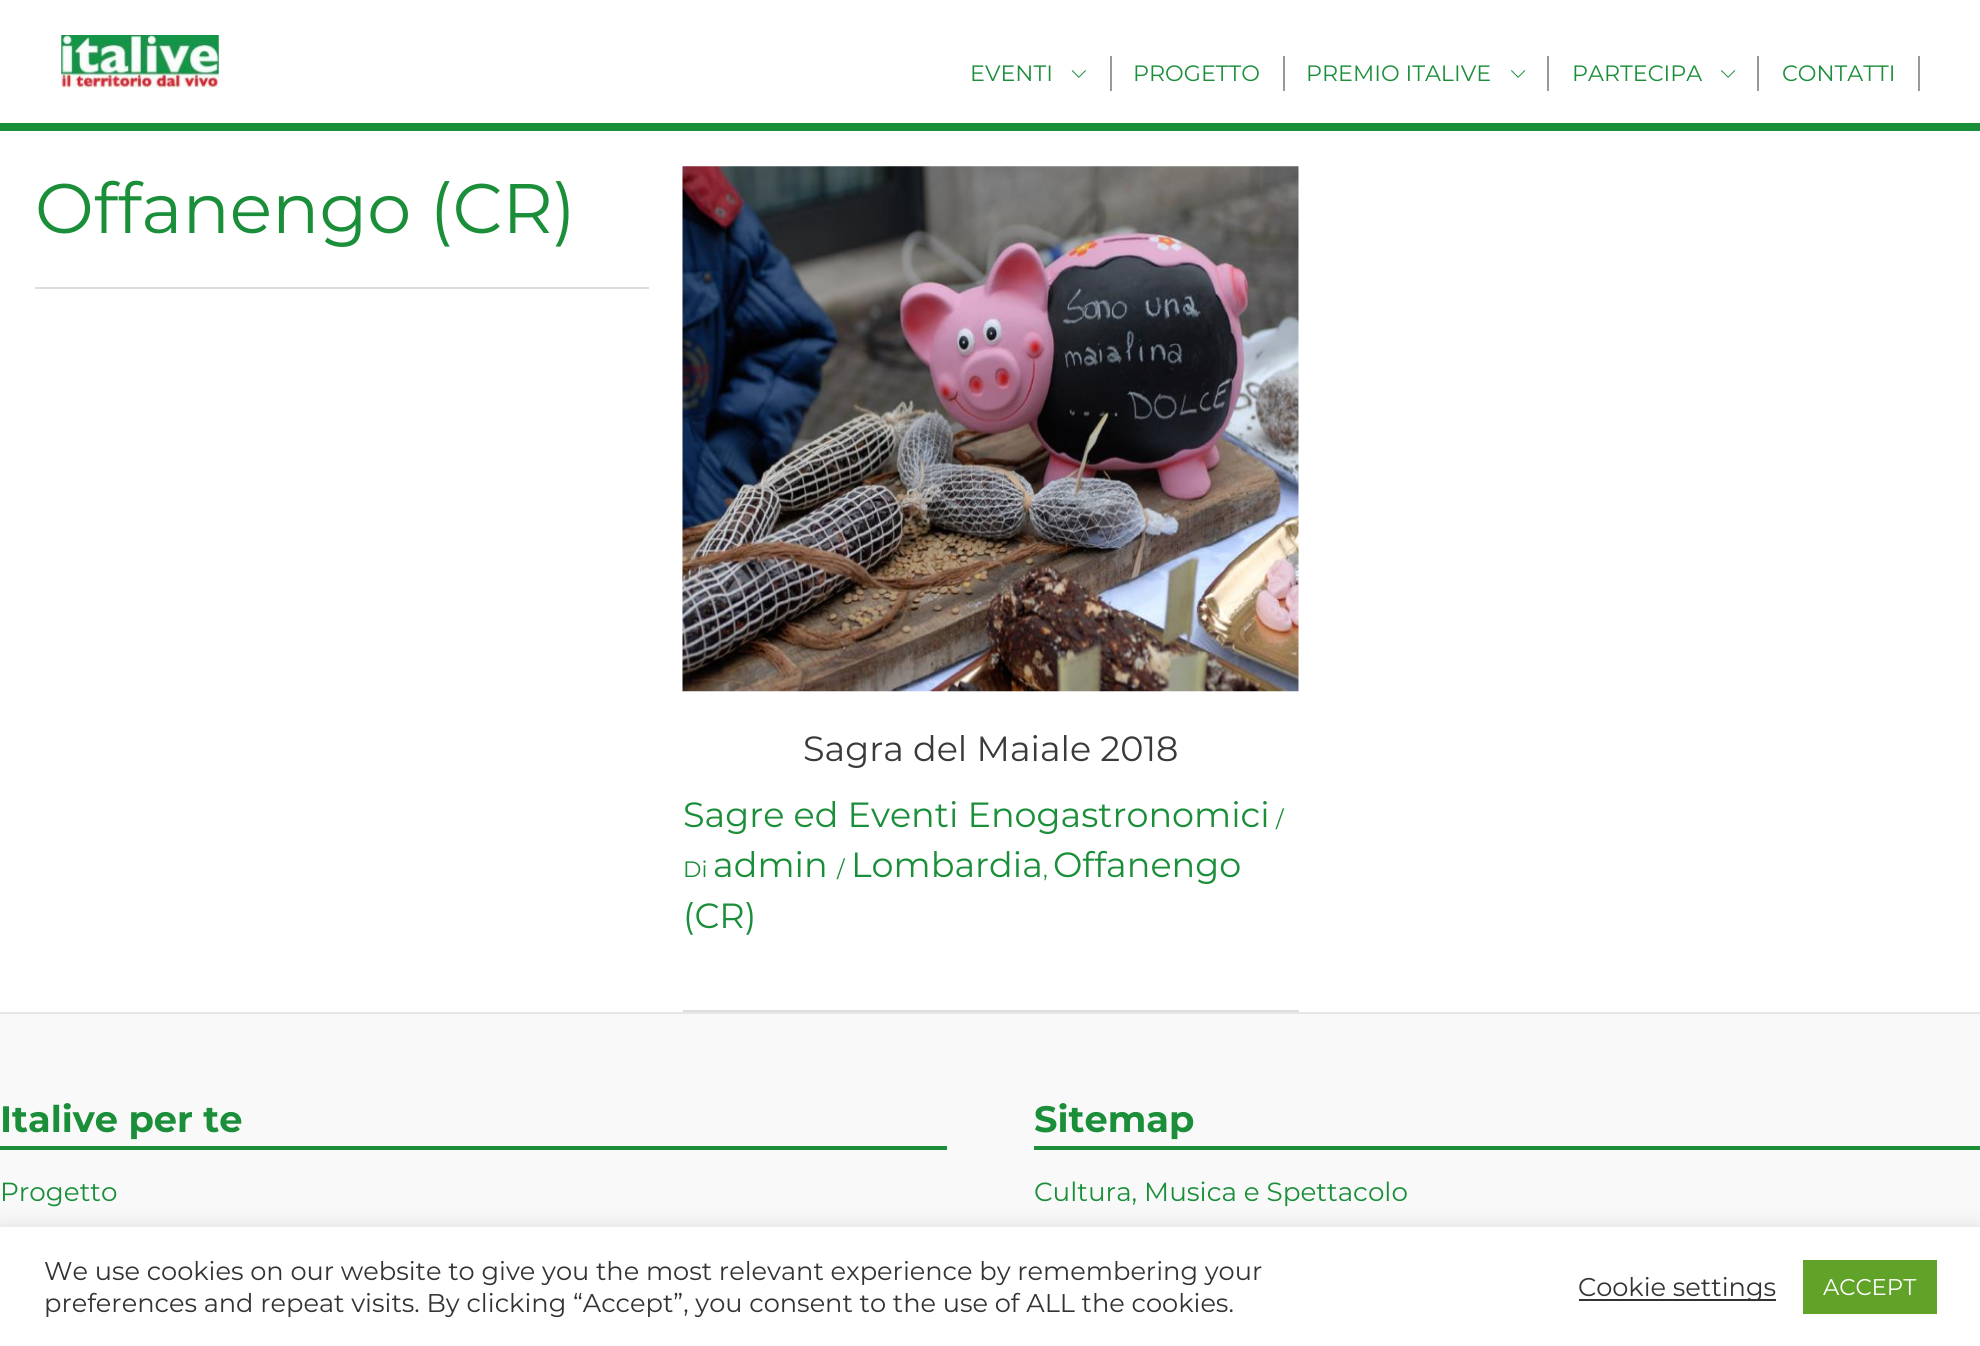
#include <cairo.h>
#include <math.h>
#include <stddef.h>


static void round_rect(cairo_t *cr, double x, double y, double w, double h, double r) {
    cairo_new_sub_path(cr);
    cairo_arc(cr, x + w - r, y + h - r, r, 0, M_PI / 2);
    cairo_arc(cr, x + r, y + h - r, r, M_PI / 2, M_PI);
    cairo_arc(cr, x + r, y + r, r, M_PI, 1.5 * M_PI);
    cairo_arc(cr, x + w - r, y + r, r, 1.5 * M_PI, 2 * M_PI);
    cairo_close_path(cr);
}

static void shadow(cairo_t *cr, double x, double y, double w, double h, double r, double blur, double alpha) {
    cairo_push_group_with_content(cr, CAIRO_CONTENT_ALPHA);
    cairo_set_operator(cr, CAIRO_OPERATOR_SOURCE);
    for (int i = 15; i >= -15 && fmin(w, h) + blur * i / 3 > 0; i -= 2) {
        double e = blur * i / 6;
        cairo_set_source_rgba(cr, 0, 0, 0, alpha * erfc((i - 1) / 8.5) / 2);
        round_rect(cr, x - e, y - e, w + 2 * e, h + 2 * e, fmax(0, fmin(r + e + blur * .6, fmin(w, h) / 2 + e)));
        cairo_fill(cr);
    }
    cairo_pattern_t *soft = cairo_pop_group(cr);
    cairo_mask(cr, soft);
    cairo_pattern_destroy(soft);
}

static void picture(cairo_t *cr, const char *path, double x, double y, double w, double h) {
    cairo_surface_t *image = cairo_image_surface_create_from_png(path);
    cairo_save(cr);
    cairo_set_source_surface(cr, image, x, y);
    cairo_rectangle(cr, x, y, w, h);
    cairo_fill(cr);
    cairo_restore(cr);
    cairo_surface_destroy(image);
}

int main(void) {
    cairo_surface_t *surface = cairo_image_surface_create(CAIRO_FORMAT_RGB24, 1980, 1346);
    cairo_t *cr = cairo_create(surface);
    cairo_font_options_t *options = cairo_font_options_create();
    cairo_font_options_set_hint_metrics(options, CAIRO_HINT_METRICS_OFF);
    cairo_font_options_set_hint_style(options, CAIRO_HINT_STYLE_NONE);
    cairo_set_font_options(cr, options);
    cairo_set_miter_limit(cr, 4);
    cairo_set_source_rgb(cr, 1, 1, 1);
    cairo_paint(cr);
    cairo_set_source_rgb(cr, 0.102, 0.557, 0.224);
    cairo_rectangle(cr, 0, 123, 1980, 8);
    cairo_fill(cr);
    picture(cr, "img1.png", 61, 35, 158, 53);
    cairo_set_source_rgb(cr, 0.6, 0.6, 0.6);
    cairo_rectangle(cr, 1110, 56, 2, 35);
    cairo_fill(cr);
    cairo_select_font_face(cr, "Montserrat", CAIRO_FONT_SLANT_NORMAL, CAIRO_FONT_WEIGHT_NORMAL);
    cairo_set_font_size(cr, 22.25);
    cairo_set_source_rgb(cr, 0.102, 0.557, 0.224);
    cairo_move_to(cr, 970, 81);
    cairo_show_text(cr, "EVENTI");
    picture(cr, "img2.png", 1071, 70, 15, 8);
    cairo_set_source_rgb(cr, 0.6, 0.6, 0.6);
    cairo_rectangle(cr, 1283, 56, 2, 35);
    cairo_fill(cr);
    cairo_set_source_rgb(cr, 0.102, 0.557, 0.224);
    cairo_move_to(cr, 1133, 81);
    cairo_show_text(cr, "PROGETTO");
    cairo_set_source_rgb(cr, 0.6, 0.6, 0.6);
    cairo_rectangle(cr, 1547, 56, 2, 35);
    cairo_fill(cr);
    cairo_set_source_rgb(cr, 0.102, 0.557, 0.224);
    cairo_move_to(cr, 1306, 81);
    cairo_show_text(cr, "PREMIO ITALIVE");
    picture(cr, "img3.png", 1511, 70, 15, 8);
    cairo_set_source_rgb(cr, 0.6, 0.6, 0.6);
    cairo_rectangle(cr, 1757, 56, 2, 35);
    cairo_fill(cr);
    cairo_set_source_rgb(cr, 0.102, 0.557, 0.224);
    cairo_move_to(cr, 1572, 81);
    cairo_show_text(cr, "PARTECIPA");
    picture(cr, "img3.png", 1721, 70, 15, 8);
    cairo_set_source_rgb(cr, 0.6, 0.6, 0.6);
    cairo_rectangle(cr, 1918, 56, 2, 35);
    cairo_fill(cr);
    cairo_set_source_rgb(cr, 0.102, 0.557, 0.224);
    cairo_move_to(cr, 1782, 81);
    cairo_show_text(cr, "CONTATTI");
    cairo_set_source_rgb(cr, 0.867, 0.867, 0.867);
    cairo_rectangle(cr, 35, 287, 614, 2);
    cairo_fill(cr);
    cairo_set_font_size(cr, 70);
    cairo_set_source_rgb(cr, 0.102, 0.557, 0.224);
    cairo_move_to(cr, 35, 233);
    cairo_show_text(cr, "Offanengo (CR)");
    cairo_set_source_rgb(cr, 0.867, 0.867, 0.867);
    cairo_rectangle(cr, 683, 1010, 616, 2);
    cairo_fill(cr);
    picture(cr, "img4.png", 682, 166, 617, 526);
    cairo_set_font_size(cr, 35);
    cairo_set_source_rgb(cr, 0.227, 0.227, 0.227);
    cairo_move_to(cr, 803, 761);
    cairo_show_text(cr, "Sagra del Maiale 2018");
    cairo_set_source_rgb(cr, 0.102, 0.557, 0.224);
    cairo_move_to(cr, 683, 827);
    cairo_show_text(cr, "Sagre ed Eventi Enogastronomici");
    cairo_set_font_size(cr, 22.25);
    cairo_move_to(cr, 1276, 827);
    cairo_show_text(cr, "/");
    cairo_move_to(cr, 683, 877);
    cairo_show_text(cr, "Di");
    cairo_set_font_size(cr, 35);
    cairo_move_to(cr, 713, 877);
    cairo_show_text(cr, "admin");
    cairo_set_font_size(cr, 22.25);
    cairo_move_to(cr, 837, 877);
    cairo_show_text(cr, "/");
    cairo_set_font_size(cr, 35);
    cairo_move_to(cr, 851, 877);
    cairo_show_text(cr, "Lombardia");
    cairo_set_font_size(cr, 22.25);
    cairo_move_to(cr, 1043, 877);
    cairo_show_text(cr, ",");
    cairo_set_font_size(cr, 35);
    cairo_move_to(cr, 1053, 877);
    cairo_show_text(cr, "Offanengo");
    cairo_move_to(cr, 683, 928);
    cairo_show_text(cr, "(CR)");
    cairo_set_source_rgb(cr, 0.976, 0.976, 0.976);
    cairo_rectangle(cr, 0, 1014, 1980, 213);
    cairo_fill(cr);
    cairo_set_source_rgb(cr, 0.902, 0.902, 0.902);
    cairo_rectangle(cr, 0, 1012, 1980, 2);
    cairo_fill(cr);
    cairo_set_source_rgb(cr, 0.102, 0.557, 0.224);
    cairo_rectangle(cr, 0, 1146, 947, 4);
    cairo_fill(cr);
    cairo_select_font_face(cr, "Montserrat", CAIRO_FONT_SLANT_NORMAL, CAIRO_FONT_WEIGHT_BOLD);
    cairo_set_font_size(cr, 36.75);
    cairo_move_to(cr, 0, 1132);
    cairo_show_text(cr, "Italive per te");
    cairo_select_font_face(cr, "Montserrat", CAIRO_FONT_SLANT_NORMAL, CAIRO_FONT_WEIGHT_NORMAL);
    cairo_set_font_size(cr, 26.25);
    cairo_move_to(cr, 0, 1201);
    cairo_show_text(cr, "Progetto");
    cairo_rectangle(cr, 1034, 1146, 946, 4);
    cairo_fill(cr);
    cairo_select_font_face(cr, "Montserrat", CAIRO_FONT_SLANT_NORMAL, CAIRO_FONT_WEIGHT_BOLD);
    cairo_set_font_size(cr, 36.75);
    cairo_move_to(cr, 1034, 1132);
    cairo_show_text(cr, "Sitemap");
    cairo_select_font_face(cr, "Montserrat", CAIRO_FONT_SLANT_NORMAL, CAIRO_FONT_WEIGHT_NORMAL);
    cairo_set_font_size(cr, 26.25);
    cairo_move_to(cr, 1034, 1201);
    cairo_show_text(cr, "Cultura, Musica e Spettacolo");
    cairo_set_source_rgb(cr, 0.675, 0.671, 0.671);
    shadow(cr, 0, 1225, 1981, 121, 0, 9, 0.3);
    cairo_set_source_rgb(cr, 1, 1, 1);
    cairo_rectangle(cr, 0, 1227, 1980, 119);
    cairo_fill(cr);
    cairo_set_font_size(cr, 25.65);
    cairo_set_source_rgb(cr, 0.2, 0.2, 0.2);
    cairo_move_to(cr, 44, 1280);
    cairo_show_text(cr, "We use cookies on our website to give you the most relevant experience by remembering your");
    cairo_move_to(cr, 44, 1312);
    cairo_show_text(cr, "preferences and repeat visits. By clicking “Accept”, you consent to the use of ALL the cookies.");
    cairo_rectangle(cr, 1579, 1299, 197, 2);
    cairo_fill(cr);
    cairo_move_to(cr, 1578, 1296);
    cairo_show_text(cr, "Cookie settings");
    cairo_set_source_rgb(cr, 0.38, 0.635, 0.161);
    cairo_rectangle(cr, 1803, 1260, 134, 54);
    cairo_fill(cr);
    cairo_set_font_size(cr, 22.75);
    cairo_set_source_rgb(cr, 1, 1, 1);
    cairo_move_to(cr, 1823, 1295);
    cairo_show_text(cr, "ACCEPT");
    cairo_surface_write_to_png(surface, "page.png");
    cairo_font_options_destroy(options);
    cairo_destroy(cr);
    cairo_surface_destroy(surface);
    return 0;
}
